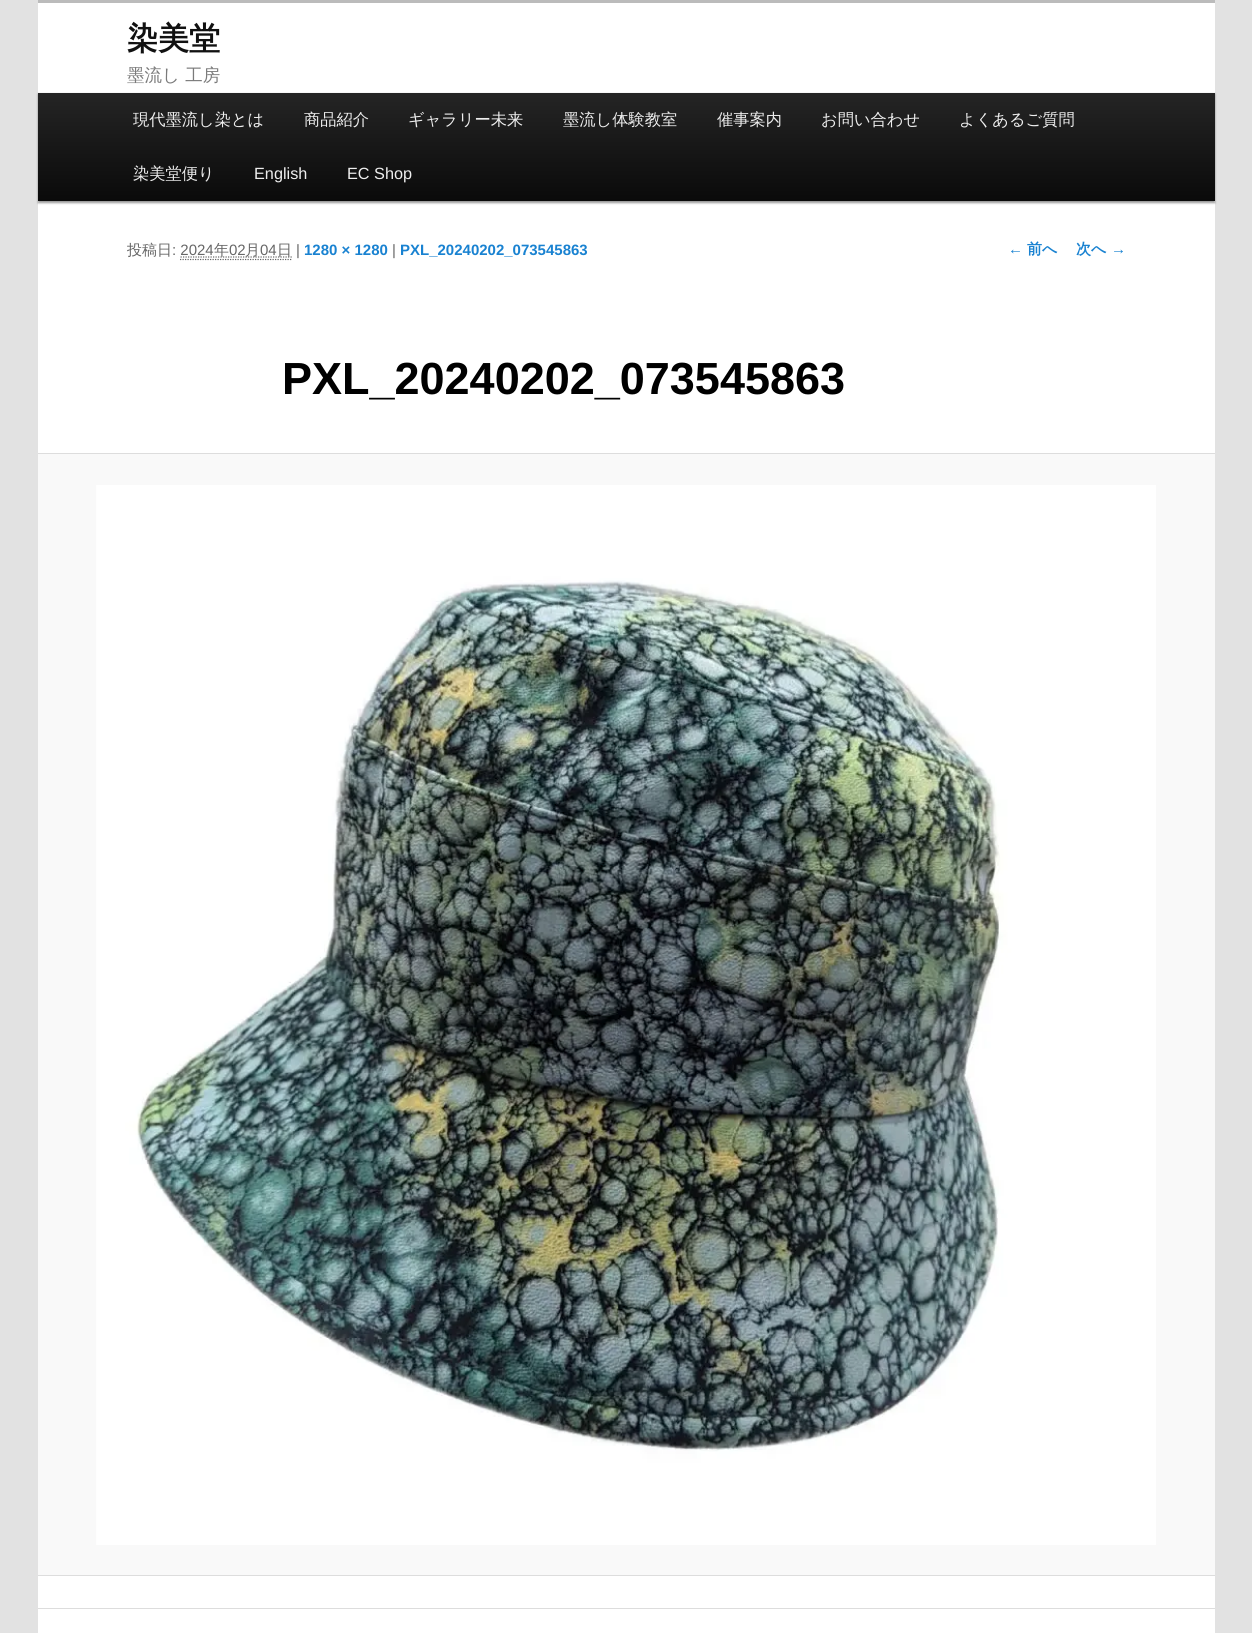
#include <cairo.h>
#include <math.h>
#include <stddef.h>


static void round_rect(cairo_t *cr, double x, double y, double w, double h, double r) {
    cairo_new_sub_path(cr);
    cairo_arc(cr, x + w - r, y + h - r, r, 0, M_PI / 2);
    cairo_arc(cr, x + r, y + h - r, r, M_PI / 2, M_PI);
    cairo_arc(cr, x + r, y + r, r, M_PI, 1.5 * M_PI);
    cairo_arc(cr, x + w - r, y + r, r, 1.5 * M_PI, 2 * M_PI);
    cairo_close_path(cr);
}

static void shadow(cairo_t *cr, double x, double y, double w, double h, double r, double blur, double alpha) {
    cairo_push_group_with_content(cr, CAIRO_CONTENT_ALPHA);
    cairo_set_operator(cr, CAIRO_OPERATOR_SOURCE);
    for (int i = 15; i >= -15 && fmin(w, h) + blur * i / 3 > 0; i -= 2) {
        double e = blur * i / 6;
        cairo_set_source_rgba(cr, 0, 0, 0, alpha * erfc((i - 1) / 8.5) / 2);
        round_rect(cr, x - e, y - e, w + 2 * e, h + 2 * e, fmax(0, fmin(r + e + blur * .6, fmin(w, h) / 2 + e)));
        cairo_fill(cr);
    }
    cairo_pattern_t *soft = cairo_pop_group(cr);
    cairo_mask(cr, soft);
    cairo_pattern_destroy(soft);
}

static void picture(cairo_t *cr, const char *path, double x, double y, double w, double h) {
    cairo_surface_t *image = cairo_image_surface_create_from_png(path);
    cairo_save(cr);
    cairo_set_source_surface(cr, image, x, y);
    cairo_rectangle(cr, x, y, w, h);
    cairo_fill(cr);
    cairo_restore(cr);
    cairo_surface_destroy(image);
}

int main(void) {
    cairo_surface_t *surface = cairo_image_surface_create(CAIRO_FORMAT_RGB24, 1252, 1633);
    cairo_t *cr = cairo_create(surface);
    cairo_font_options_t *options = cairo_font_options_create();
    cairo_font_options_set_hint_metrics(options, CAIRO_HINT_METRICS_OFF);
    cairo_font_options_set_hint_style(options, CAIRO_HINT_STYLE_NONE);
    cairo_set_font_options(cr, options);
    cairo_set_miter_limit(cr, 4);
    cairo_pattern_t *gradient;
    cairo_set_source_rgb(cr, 0.886, 0.886, 0.886);
    cairo_paint(cr);
    cairo_set_source_rgb(cr, 1, 1, 1);
    cairo_rectangle(cr, 38, 3, 1177, 1630);
    cairo_fill(cr);
    cairo_set_source_rgb(cr, 0.733, 0.733, 0.733);
    cairo_rectangle(cr, 38, 0, 1177, 3);
    cairo_fill(cr);
    cairo_select_font_face(cr, "WenQuanYi Zen Hei", CAIRO_FONT_SLANT_NORMAL, CAIRO_FONT_WEIGHT_BOLD);
    cairo_set_font_size(cr, 31);
    cairo_set_source_rgb(cr, 0.067, 0.067, 0.067);
    cairo_move_to(cr, 127, 49);
    cairo_show_text(cr, "染美堂");
    cairo_select_font_face(cr, "WenQuanYi Zen Hei Medium", CAIRO_FONT_SLANT_NORMAL, CAIRO_FONT_WEIGHT_NORMAL);
    cairo_set_font_size(cr, 17.5);
    cairo_set_source_rgb(cr, 0.478, 0.478, 0.478);
    cairo_move_to(cr, 127, 81);
    cairo_show_text(cr, "墨流し 工房");
    cairo_set_source_rgb(cr, 0, 0, 0);
    shadow(cr, 38, 94, 1177, 109, 0, 1, 0.4);
    gradient = cairo_pattern_create_linear(626, 92, 626, 201);
    cairo_pattern_add_color_stop_rgba(gradient, 0, 0.145, 0.145, 0.145, 1);
    cairo_pattern_add_color_stop_rgba(gradient, 1, 0.039, 0.039, 0.039, 1);
    cairo_set_source(cr, gradient);
    cairo_pattern_destroy(gradient);
    cairo_rectangle(cr, 38, 93, 1177, 108);
    cairo_fill(cr);
    cairo_set_font_size(cr, 16.25);
    cairo_set_source_rgb(cr, 0.933, 0.933, 0.933);
    cairo_move_to(cr, 133, 125);
    cairo_show_text(cr, "現代墨流し染とは");
    cairo_move_to(cr, 304, 125);
    cairo_show_text(cr, "商品紹介");
    cairo_move_to(cr, 408, 125);
    cairo_show_text(cr, "ギャラリー未来");
    cairo_move_to(cr, 563, 125);
    cairo_show_text(cr, "墨流し体験教室");
    cairo_move_to(cr, 717, 125);
    cairo_show_text(cr, "催事案内");
    cairo_move_to(cr, 821, 125);
    cairo_show_text(cr, "お問い合わせ");
    cairo_move_to(cr, 959, 125);
    cairo_show_text(cr, "よくあるご質問");
    cairo_move_to(cr, 133, 179);
    cairo_show_text(cr, "染美堂便り");
    cairo_select_font_face(cr, "Liberation Sans", CAIRO_FONT_SLANT_NORMAL, CAIRO_FONT_WEIGHT_NORMAL);
    cairo_move_to(cr, 254, 179);
    cairo_show_text(cr, "English");
    cairo_move_to(cr, 347, 179);
    cairo_show_text(cr, "EC Shop");
    cairo_select_font_face(cr, "WenQuanYi Zen Hei Medium", CAIRO_FONT_SLANT_NORMAL, CAIRO_FONT_WEIGHT_NORMAL);
    cairo_set_font_size(cr, 15);
    cairo_set_source_rgb(cr, 0.4, 0.4, 0.4);
    cairo_move_to(cr, 127, 255);
    cairo_show_text(cr, "投稿日");
    cairo_select_font_face(cr, "Liberation Sans", CAIRO_FONT_SLANT_NORMAL, CAIRO_FONT_WEIGHT_NORMAL);
    cairo_move_to(cr, 172, 255);
    cairo_show_text(cr, ": 2024");
    cairo_new_path(cr);
    cairo_move_to(cr, 180.5, 257);
    cairo_line_to(cr, 292, 257);
    cairo_set_line_width(cr, 1.2);
    cairo_set_dash(cr, (double[]){1.25, 1.25}, 2, 0);
    cairo_stroke(cr);
    cairo_select_font_face(cr, "WenQuanYi Zen Hei Medium", CAIRO_FONT_SLANT_NORMAL, CAIRO_FONT_WEIGHT_NORMAL);
    cairo_move_to(cr, 214, 255);
    cairo_show_text(cr, "年");
    cairo_select_font_face(cr, "Liberation Sans", CAIRO_FONT_SLANT_NORMAL, CAIRO_FONT_WEIGHT_NORMAL);
    cairo_move_to(cr, 229, 255);
    cairo_show_text(cr, "02");
    cairo_new_path(cr);
    cairo_move_to(cr, 180, 259.5);
    cairo_line_to(cr, 292.5, 259.5);
    cairo_stroke(cr);
    cairo_select_font_face(cr, "WenQuanYi Zen Hei Medium", CAIRO_FONT_SLANT_NORMAL, CAIRO_FONT_WEIGHT_NORMAL);
    cairo_move_to(cr, 245, 255);
    cairo_show_text(cr, "月");
    cairo_select_font_face(cr, "Liberation Sans", CAIRO_FONT_SLANT_NORMAL, CAIRO_FONT_WEIGHT_NORMAL);
    cairo_move_to(cr, 260, 255);
    cairo_show_text(cr, "04");
    cairo_select_font_face(cr, "WenQuanYi Zen Hei Medium", CAIRO_FONT_SLANT_NORMAL, CAIRO_FONT_WEIGHT_NORMAL);
    cairo_move_to(cr, 277, 255);
    cairo_show_text(cr, "日");
    cairo_select_font_face(cr, "Liberation Sans", CAIRO_FONT_SLANT_NORMAL, CAIRO_FONT_WEIGHT_NORMAL);
    cairo_move_to(cr, 296, 255);
    cairo_show_text(cr, "|");
    cairo_select_font_face(cr, "Liberation Sans", CAIRO_FONT_SLANT_NORMAL, CAIRO_FONT_WEIGHT_BOLD);
    cairo_set_source_rgb(cr, 0.098, 0.51, 0.82);
    cairo_move_to(cr, 304, 255);
    cairo_show_text(cr, "1280 × 1280");
    cairo_select_font_face(cr, "Liberation Sans", CAIRO_FONT_SLANT_NORMAL, CAIRO_FONT_WEIGHT_NORMAL);
    cairo_set_source_rgb(cr, 0.4, 0.4, 0.4);
    cairo_move_to(cr, 392, 255);
    cairo_show_text(cr, "|");
    cairo_select_font_face(cr, "Liberation Sans", CAIRO_FONT_SLANT_NORMAL, CAIRO_FONT_WEIGHT_BOLD);
    cairo_set_source_rgb(cr, 0.098, 0.51, 0.82);
    cairo_move_to(cr, 400, 255);
    cairo_show_text(cr, "PXL_20240202_073545863");
    cairo_set_font_size(cr, 45);
    cairo_set_source_rgb(cr, 0, 0, 0);
    cairo_move_to(cr, 282, 394);
    cairo_show_text(cr, "PXL_20240202_073545863");
    cairo_set_source_rgb(cr, 0.976, 0.976, 0.976);
    cairo_rectangle(cr, 38, 454, 1177, 1121);
    cairo_fill(cr);
    cairo_set_source_rgb(cr, 0.867, 0.867, 0.867);
    cairo_rectangle(cr, 38, 453, 1177, 1);
    cairo_fill(cr);
    cairo_rectangle(cr, 38, 1575, 1177, 1);
    cairo_fill(cr);
    picture(cr, "img1.png", 96, 485, 1060, 1060);
    cairo_set_font_size(cr, 15);
    cairo_set_source_rgb(cr, 0.098, 0.51, 0.82);
    cairo_move_to(cr, 1008, 254);
    cairo_show_text(cr, "←");
    cairo_select_font_face(cr, "WenQuanYi Zen Hei", CAIRO_FONT_SLANT_NORMAL, CAIRO_FONT_WEIGHT_BOLD);
    cairo_move_to(cr, 1027, 254);
    cairo_show_text(cr, "前へ");
    cairo_move_to(cr, 1076, 254);
    cairo_show_text(cr, "次へ");
    cairo_select_font_face(cr, "Liberation Sans", CAIRO_FONT_SLANT_NORMAL, CAIRO_FONT_WEIGHT_BOLD);
    cairo_move_to(cr, 1111, 254);
    cairo_show_text(cr, "→");
    cairo_set_source_rgb(cr, 0.867, 0.867, 0.867);
    cairo_rectangle(cr, 38, 1608, 1177, 1);
    cairo_fill(cr);
    cairo_surface_write_to_png(surface, "page.png");
    cairo_font_options_destroy(options);
    cairo_destroy(cr);
    cairo_surface_destroy(surface);
    return 0;
}
